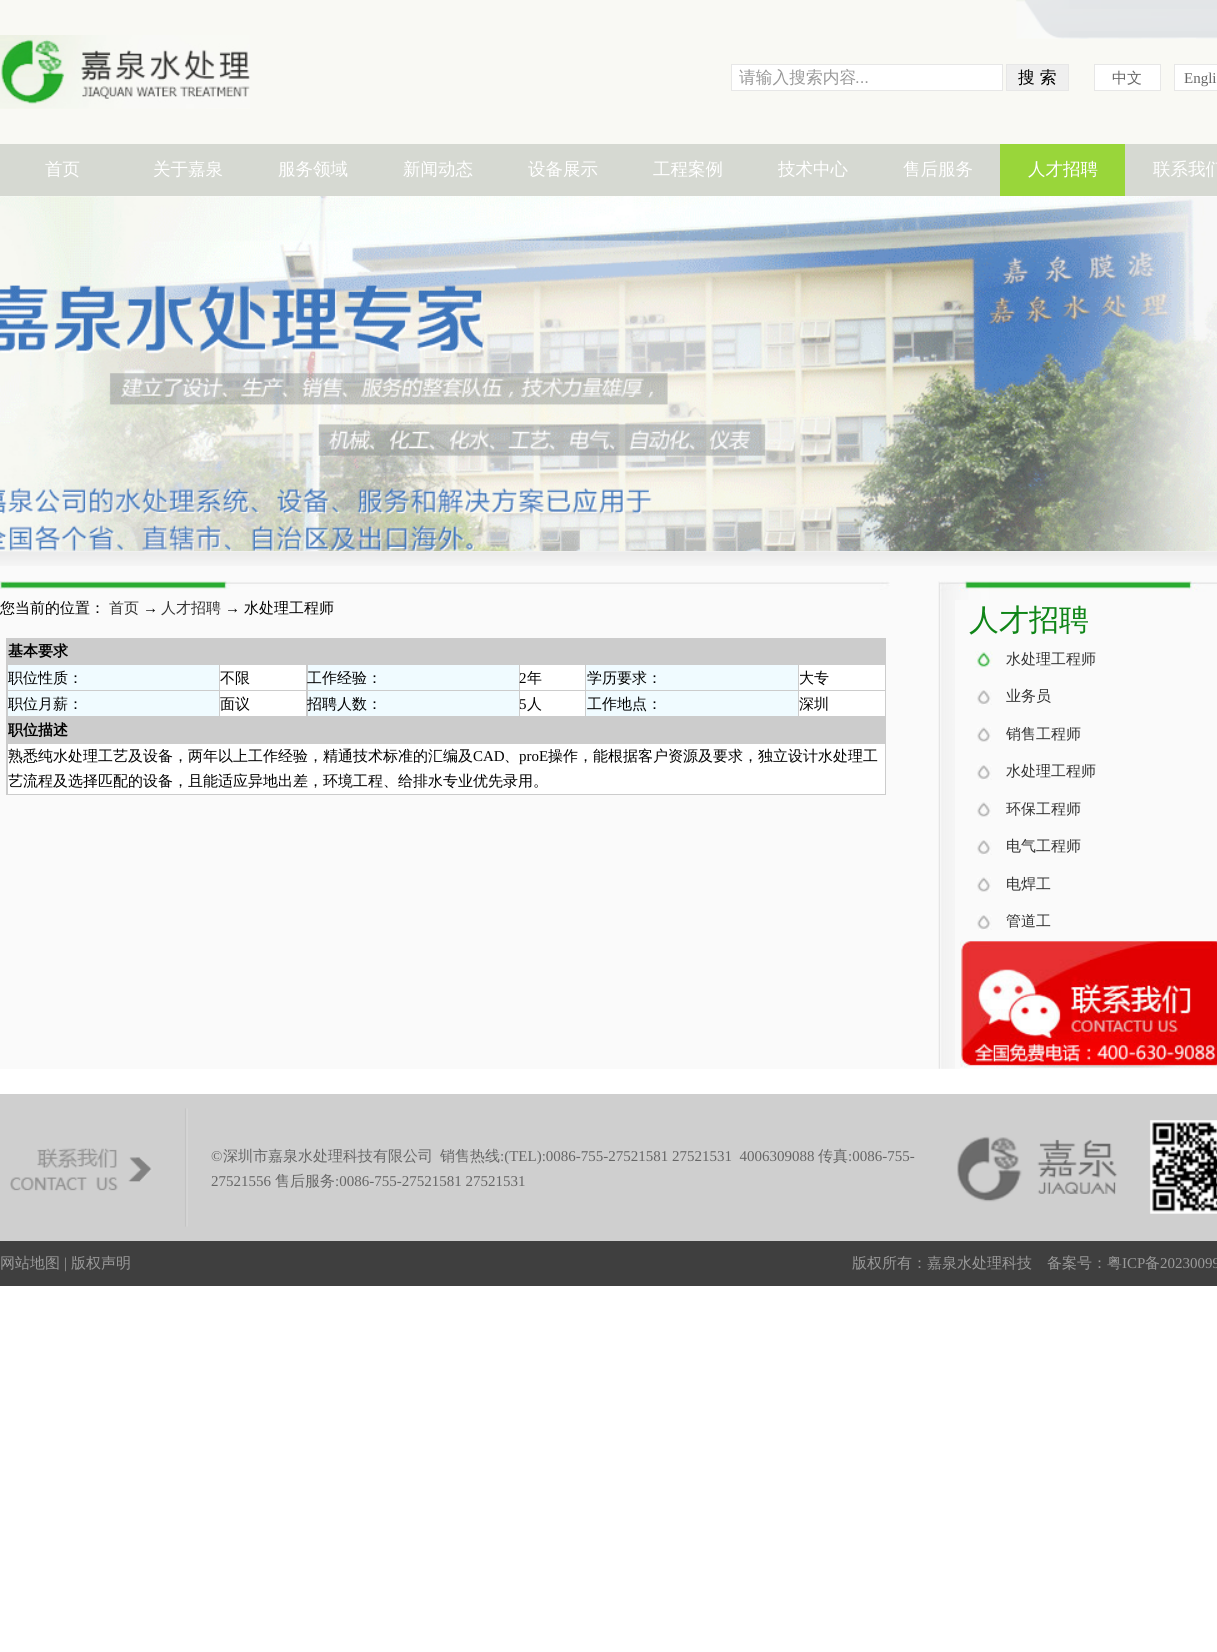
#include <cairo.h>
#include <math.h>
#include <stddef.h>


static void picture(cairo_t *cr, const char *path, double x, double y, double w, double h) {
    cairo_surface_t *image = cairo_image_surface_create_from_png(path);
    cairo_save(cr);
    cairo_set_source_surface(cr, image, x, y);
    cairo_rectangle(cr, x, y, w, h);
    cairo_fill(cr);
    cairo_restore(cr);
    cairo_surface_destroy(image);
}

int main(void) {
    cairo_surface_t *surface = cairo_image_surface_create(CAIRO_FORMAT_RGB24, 1217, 1652);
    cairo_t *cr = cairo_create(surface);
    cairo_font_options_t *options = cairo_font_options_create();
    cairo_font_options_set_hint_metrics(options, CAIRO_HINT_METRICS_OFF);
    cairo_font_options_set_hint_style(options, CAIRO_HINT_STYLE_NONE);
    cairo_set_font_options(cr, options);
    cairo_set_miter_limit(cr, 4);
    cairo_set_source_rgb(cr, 1, 1, 1);
    cairo_paint(cr);
    cairo_set_source_rgb(cr, 0.973, 0.976, 0.957);
    cairo_rectangle(cr, 0, 0, 1217, 144);
    cairo_fill(cr);
    picture(cr, "img1.png", 0, 35, 250, 74);
    picture(cr, "img2.png", 1016, 0, 201, 39);
    cairo_set_source_rgb(cr, 1, 1, 1);
    cairo_rectangle(cr, 731.5, 64.5, 271, 26);
    cairo_fill_preserve(cr);
    cairo_set_source_rgb(cr, 0.906, 0.906, 0.906);
    cairo_set_line_width(cr, 1);
    cairo_stroke(cr);
    cairo_select_font_face(cr, "WenQuanYi Zen Hei Medium", CAIRO_FONT_SLANT_NORMAL, CAIRO_FONT_WEIGHT_NORMAL);
    cairo_set_font_size(cr, 16.75);
    cairo_set_source_rgb(cr, 0.6, 0.6, 0.6);
    cairo_move_to(cr, 739, 83);
    cairo_show_text(cr, "请输入搜索内容");
    cairo_select_font_face(cr, "Liberation Sans", CAIRO_FONT_SLANT_NORMAL, CAIRO_FONT_WEIGHT_NORMAL);
    cairo_move_to(cr, 855, 83);
    cairo_show_text(cr, "...");
    cairo_set_source_rgb(cr, 0.937, 0.937, 0.937);
    cairo_rectangle(cr, 1006.5, 64.5, 62, 26);
    cairo_fill_preserve(cr);
    cairo_set_source_rgb(cr, 0.906, 0.906, 0.906);
    cairo_stroke(cr);
    cairo_select_font_face(cr, "WenQuanYi Zen Hei Medium", CAIRO_FONT_SLANT_NORMAL, CAIRO_FONT_WEIGHT_NORMAL);
    cairo_set_source_rgb(cr, 0, 0, 0);
    cairo_move_to(cr, 1018, 83);
    cairo_show_text(cr, "搜 索");
    cairo_set_source_rgb(cr, 1, 1, 1);
    cairo_rectangle(cr, 1094.5, 64.5, 66, 26);
    cairo_fill_preserve(cr);
    cairo_set_source_rgb(cr, 0.906, 0.906, 0.906);
    cairo_stroke(cr);
    cairo_set_font_size(cr, 15);
    cairo_set_source_rgb(cr, 0.4, 0.4, 0.4);
    cairo_move_to(cr, 1112, 83);
    cairo_show_text(cr, "中文");
    cairo_set_source_rgb(cr, 1, 1, 1);
    cairo_rectangle(cr, 1174.5, 64.5, 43, 26);
    cairo_fill_preserve(cr);
    cairo_set_source_rgb(cr, 0.906, 0.906, 0.906);
    cairo_stroke(cr);
    cairo_select_font_face(cr, "Liberation Serif", CAIRO_FONT_SLANT_NORMAL, CAIRO_FONT_WEIGHT_NORMAL);
    cairo_set_source_rgb(cr, 0.4, 0.4, 0.4);
    cairo_move_to(cr, 1184, 83);
    cairo_show_text(cr, "Engli");
    cairo_set_source_rgb(cr, 0.839, 0.851, 0.824);
    cairo_rectangle(cr, 0, 144, 1217, 52);
    cairo_fill(cr);
    cairo_select_font_face(cr, "WenQuanYi Zen Hei Medium", CAIRO_FONT_SLANT_NORMAL, CAIRO_FONT_WEIGHT_NORMAL);
    cairo_set_font_size(cr, 17.5);
    cairo_set_source_rgb(cr, 1, 1, 1);
    cairo_move_to(cr, 45, 175);
    cairo_show_text(cr, "首页");
    cairo_move_to(cr, 153, 175);
    cairo_show_text(cr, "关于嘉泉");
    cairo_move_to(cr, 278, 175);
    cairo_show_text(cr, "服务领域");
    cairo_move_to(cr, 403, 175);
    cairo_show_text(cr, "新闻动态");
    cairo_move_to(cr, 528, 175);
    cairo_show_text(cr, "设备展示");
    cairo_move_to(cr, 653, 175);
    cairo_show_text(cr, "工程案例");
    cairo_move_to(cr, 778, 175);
    cairo_show_text(cr, "技术中心");
    cairo_move_to(cr, 903, 175);
    cairo_show_text(cr, "售后服务");
    cairo_set_source_rgb(cr, 0.6, 0.839, 0.227);
    cairo_rectangle(cr, 1000, 144, 125, 52);
    cairo_fill(cr);
    cairo_set_source_rgb(cr, 1, 1, 1);
    cairo_move_to(cr, 1028, 175);
    cairo_show_text(cr, "人才招聘");
    cairo_move_to(cr, 1153, 175);
    cairo_show_text(cr, "联系我们");
    picture(cr, "img3.png", 0, 196, 1217, 355);
    cairo_set_source_rgb(cr, 0.98, 0.98, 0.98);
    cairo_rectangle(cr, 0, 551, 1217, 518);
    cairo_fill(cr);
    picture(cr, "img4.png", 0, 551, 1217, 15);
    picture(cr, "img5.png", 0, 581, 890, 9);
    cairo_set_font_size(cr, 15);
    cairo_set_source_rgb(cr, 0, 0, 0);
    cairo_move_to(cr, 0, 613);
    cairo_show_text(cr, "您当前的位置：");
    cairo_set_source_rgb(cr, 0.2, 0.2, 0.2);
    cairo_move_to(cr, 109, 613);
    cairo_show_text(cr, "首页");
    cairo_select_font_face(cr, "Liberation Serif", CAIRO_FONT_SLANT_NORMAL, CAIRO_FONT_WEIGHT_NORMAL);
    cairo_set_source_rgb(cr, 0, 0, 0);
    cairo_move_to(cr, 143, 613);
    cairo_show_text(cr, "→");
    cairo_select_font_face(cr, "WenQuanYi Zen Hei Medium", CAIRO_FONT_SLANT_NORMAL, CAIRO_FONT_WEIGHT_NORMAL);
    cairo_set_source_rgb(cr, 0.2, 0.2, 0.2);
    cairo_move_to(cr, 161, 613);
    cairo_show_text(cr, "人才招聘");
    cairo_select_font_face(cr, "Liberation Serif", CAIRO_FONT_SLANT_NORMAL, CAIRO_FONT_WEIGHT_NORMAL);
    cairo_set_source_rgb(cr, 0, 0, 0);
    cairo_move_to(cr, 225, 613);
    cairo_show_text(cr, "→");
    cairo_select_font_face(cr, "WenQuanYi Zen Hei Medium", CAIRO_FONT_SLANT_NORMAL, CAIRO_FONT_WEIGHT_NORMAL);
    cairo_move_to(cr, 244, 613);
    cairo_show_text(cr, "水处理工程师");
    cairo_set_source_rgb(cr, 0.8, 0.8, 0.8);
    cairo_rectangle(cr, 6, 638, 880, 157);
    cairo_fill(cr);
    cairo_select_font_face(cr, "WenQuanYi Zen Hei", CAIRO_FONT_SLANT_NORMAL, CAIRO_FONT_WEIGHT_BOLD);
    cairo_set_source_rgb(cr, 0, 0, 0);
    cairo_move_to(cr, 8, 656);
    cairo_show_text(cr, "基本要求");
    cairo_set_source_rgb(cr, 0.941, 0.984, 1);
    cairo_rectangle(cr, 8, 665, 211, 25);
    cairo_fill(cr);
    cairo_select_font_face(cr, "WenQuanYi Zen Hei Medium", CAIRO_FONT_SLANT_NORMAL, CAIRO_FONT_WEIGHT_NORMAL);
    cairo_set_source_rgb(cr, 0, 0, 0);
    cairo_move_to(cr, 8, 683);
    cairo_show_text(cr, "职位性质：");
    cairo_set_source_rgb(cr, 1, 1, 1);
    cairo_rectangle(cr, 220, 665, 86, 25);
    cairo_fill(cr);
    cairo_set_source_rgb(cr, 0, 0, 0);
    cairo_move_to(cr, 220, 683);
    cairo_show_text(cr, "不限");
    cairo_set_source_rgb(cr, 0.941, 0.984, 1);
    cairo_rectangle(cr, 308, 665, 211, 25);
    cairo_fill(cr);
    cairo_set_source_rgb(cr, 0, 0, 0);
    cairo_move_to(cr, 307, 683);
    cairo_show_text(cr, "工作经验：");
    cairo_set_source_rgb(cr, 1, 1, 1);
    cairo_rectangle(cr, 520, 665, 65, 25);
    cairo_fill(cr);
    cairo_select_font_face(cr, "Liberation Serif", CAIRO_FONT_SLANT_NORMAL, CAIRO_FONT_WEIGHT_NORMAL);
    cairo_set_source_rgb(cr, 0, 0, 0);
    cairo_move_to(cr, 519, 683);
    cairo_show_text(cr, "2");
    cairo_select_font_face(cr, "WenQuanYi Zen Hei Medium", CAIRO_FONT_SLANT_NORMAL, CAIRO_FONT_WEIGHT_NORMAL);
    cairo_move_to(cr, 527, 683);
    cairo_show_text(cr, "年");
    cairo_set_source_rgb(cr, 0.941, 0.984, 1);
    cairo_rectangle(cr, 586, 665, 212, 25);
    cairo_fill(cr);
    cairo_set_source_rgb(cr, 0, 0, 0);
    cairo_move_to(cr, 587, 683);
    cairo_show_text(cr, "学历要求：");
    cairo_set_source_rgb(cr, 1, 1, 1);
    cairo_rectangle(cr, 799, 665, 86, 25);
    cairo_fill(cr);
    cairo_set_source_rgb(cr, 0, 0, 0);
    cairo_move_to(cr, 799, 683);
    cairo_show_text(cr, "大专");
    cairo_set_source_rgb(cr, 0.941, 0.984, 1);
    cairo_rectangle(cr, 8, 691, 211, 25);
    cairo_fill(cr);
    cairo_set_source_rgb(cr, 0, 0, 0);
    cairo_move_to(cr, 8, 709);
    cairo_show_text(cr, "职位月薪：");
    cairo_set_source_rgb(cr, 1, 1, 1);
    cairo_rectangle(cr, 220, 691, 86, 25);
    cairo_fill(cr);
    cairo_set_source_rgb(cr, 0, 0, 0);
    cairo_move_to(cr, 220, 709);
    cairo_show_text(cr, "面议");
    cairo_set_source_rgb(cr, 0.941, 0.984, 1);
    cairo_rectangle(cr, 308, 691, 211, 25);
    cairo_fill(cr);
    cairo_set_source_rgb(cr, 0, 0, 0);
    cairo_move_to(cr, 307, 709);
    cairo_show_text(cr, "招聘人数：");
    cairo_set_source_rgb(cr, 1, 1, 1);
    cairo_rectangle(cr, 520, 691, 65, 25);
    cairo_fill(cr);
    cairo_select_font_face(cr, "Liberation Serif", CAIRO_FONT_SLANT_NORMAL, CAIRO_FONT_WEIGHT_NORMAL);
    cairo_set_source_rgb(cr, 0, 0, 0);
    cairo_move_to(cr, 519, 709);
    cairo_show_text(cr, "5");
    cairo_select_font_face(cr, "WenQuanYi Zen Hei Medium", CAIRO_FONT_SLANT_NORMAL, CAIRO_FONT_WEIGHT_NORMAL);
    cairo_move_to(cr, 527, 709);
    cairo_show_text(cr, "人");
    cairo_set_source_rgb(cr, 0.941, 0.984, 1);
    cairo_rectangle(cr, 586, 691, 212, 25);
    cairo_fill(cr);
    cairo_set_source_rgb(cr, 0, 0, 0);
    cairo_move_to(cr, 587, 709);
    cairo_show_text(cr, "工作地点：");
    cairo_set_source_rgb(cr, 1, 1, 1);
    cairo_rectangle(cr, 799, 691, 86, 25);
    cairo_fill(cr);
    cairo_set_source_rgb(cr, 0, 0, 0);
    cairo_move_to(cr, 799, 709);
    cairo_show_text(cr, "深圳");
    cairo_select_font_face(cr, "WenQuanYi Zen Hei", CAIRO_FONT_SLANT_NORMAL, CAIRO_FONT_WEIGHT_BOLD);
    cairo_move_to(cr, 8, 735);
    cairo_show_text(cr, "职位描述");
    cairo_set_source_rgb(cr, 1, 1, 1);
    cairo_rectangle(cr, 8, 744, 877, 50);
    cairo_fill(cr);
    cairo_select_font_face(cr, "WenQuanYi Zen Hei Medium", CAIRO_FONT_SLANT_NORMAL, CAIRO_FONT_WEIGHT_NORMAL);
    cairo_set_source_rgb(cr, 0, 0, 0);
    cairo_move_to(cr, 8, 761);
    cairo_show_text(cr, "熟悉纯水处理工艺及设备，两年以上工作经验，精通技术标准的汇编及");
    cairo_select_font_face(cr, "Liberation Serif", CAIRO_FONT_SLANT_NORMAL, CAIRO_FONT_WEIGHT_NORMAL);
    cairo_move_to(cr, 473, 761);
    cairo_show_text(cr, "CAD");
    cairo_select_font_face(cr, "WenQuanYi Zen Hei Medium", CAIRO_FONT_SLANT_NORMAL, CAIRO_FONT_WEIGHT_NORMAL);
    cairo_move_to(cr, 504, 761);
    cairo_show_text(cr, "、");
    cairo_select_font_face(cr, "Liberation Serif", CAIRO_FONT_SLANT_NORMAL, CAIRO_FONT_WEIGHT_NORMAL);
    cairo_move_to(cr, 519, 761);
    cairo_show_text(cr, "proE");
    cairo_select_font_face(cr, "WenQuanYi Zen Hei Medium", CAIRO_FONT_SLANT_NORMAL, CAIRO_FONT_WEIGHT_NORMAL);
    cairo_move_to(cr, 548, 761);
    cairo_show_text(cr, "操作，能根据客户资源及要求，独立设计水处理工");
    cairo_move_to(cr, 8, 786);
    cairo_show_text(cr, "艺流程及选择匹配的设备，且能适应异地出差，环境工程、给排水专业优先录用。");
    picture(cr, "img6.png", 938, 581, 17, 488);
    picture(cr, "img7.png", 939, 581, 278, 19);
    cairo_set_font_size(cr, 30);
    cairo_set_source_rgb(cr, 0.059, 0.522, 0.09);
    cairo_move_to(cr, 969, 630);
    cairo_show_text(cr, "人才招聘");
    picture(cr, "img8.png", 975, 651, 18, 17);
    cairo_set_font_size(cr, 15);
    cairo_set_source_rgb(cr, 0.2, 0.2, 0.2);
    cairo_move_to(cr, 1006, 664);
    cairo_show_text(cr, "水处理工程师");
    picture(cr, "img9.png", 977, 690, 15, 15);
    cairo_move_to(cr, 1006, 701);
    cairo_show_text(cr, "业务员");
    picture(cr, "img10.png", 977, 727, 14, 15);
    cairo_move_to(cr, 1006, 739);
    cairo_show_text(cr, "销售工程师");
    picture(cr, "img9.png", 977, 765, 15, 15);
    cairo_move_to(cr, 1006, 776);
    cairo_show_text(cr, "水处理工程师");
    picture(cr, "img10.png", 977, 802, 14, 15);
    cairo_move_to(cr, 1006, 814);
    cairo_show_text(cr, "环保工程师");
    picture(cr, "img9.png", 977, 840, 15, 15);
    cairo_move_to(cr, 1006, 851);
    cairo_show_text(cr, "电气工程师");
    picture(cr, "img10.png", 977, 877, 14, 15);
    cairo_move_to(cr, 1006, 889);
    cairo_show_text(cr, "电焊工");
    picture(cr, "img9.png", 977, 915, 15, 15);
    cairo_move_to(cr, 1006, 926);
    cairo_show_text(cr, "管道工");
    picture(cr, "img11.png", 960, 940, 257, 129);
    cairo_set_source_rgb(cr, 0.812, 0.812, 0.812);
    cairo_rectangle(cr, 0, 1094, 1217, 147);
    cairo_fill(cr);
    picture(cr, "img12.png", 10, 1108, 178, 119);
    cairo_select_font_face(cr, "Liberation Serif", CAIRO_FONT_SLANT_NORMAL, CAIRO_FONT_WEIGHT_NORMAL);
    cairo_set_source_rgb(cr, 0.4, 0.4, 0.4);
    cairo_move_to(cr, 211, 1161);
    cairo_show_text(cr, "©");
    cairo_select_font_face(cr, "WenQuanYi Zen Hei Medium", CAIRO_FONT_SLANT_NORMAL, CAIRO_FONT_WEIGHT_NORMAL);
    cairo_move_to(cr, 223, 1161);
    cairo_show_text(cr, "深圳市嘉泉水处理科技有限公司");
    cairo_move_to(cr, 440, 1161);
    cairo_show_text(cr, "销售热线");
    cairo_select_font_face(cr, "Liberation Serif", CAIRO_FONT_SLANT_NORMAL, CAIRO_FONT_WEIGHT_NORMAL);
    cairo_move_to(cr, 500, 1161);
    cairo_show_text(cr, ":(TEL):0086-755-27521581 27521531  4006309088");
    cairo_select_font_face(cr, "WenQuanYi Zen Hei Medium", CAIRO_FONT_SLANT_NORMAL, CAIRO_FONT_WEIGHT_NORMAL);
    cairo_move_to(cr, 818, 1161);
    cairo_show_text(cr, "传真");
    cairo_select_font_face(cr, "Liberation Serif", CAIRO_FONT_SLANT_NORMAL, CAIRO_FONT_WEIGHT_NORMAL);
    cairo_move_to(cr, 848, 1161);
    cairo_show_text(cr, ":0086-755-");
    cairo_move_to(cr, 211, 1186);
    cairo_show_text(cr, "27521556");
    cairo_select_font_face(cr, "WenQuanYi Zen Hei Medium", CAIRO_FONT_SLANT_NORMAL, CAIRO_FONT_WEIGHT_NORMAL);
    cairo_move_to(cr, 275, 1186);
    cairo_show_text(cr, "售后服务");
    cairo_select_font_face(cr, "Liberation Serif", CAIRO_FONT_SLANT_NORMAL, CAIRO_FONT_WEIGHT_NORMAL);
    cairo_move_to(cr, 335, 1186);
    cairo_show_text(cr, ":0086-755-27521581 27521531");
    picture(cr, "img13.png", 957, 1120, 260, 94);
    cairo_set_source_rgb(cr, 0.247, 0.247, 0.247);
    cairo_rectangle(cr, 0, 1241, 1217, 45);
    cairo_fill(cr);
    cairo_select_font_face(cr, "WenQuanYi Zen Hei Medium", CAIRO_FONT_SLANT_NORMAL, CAIRO_FONT_WEIGHT_NORMAL);
    cairo_set_source_rgb(cr, 0.6, 0.6, 0.6);
    cairo_move_to(cr, 0, 1268);
    cairo_show_text(cr, "网站地图");
    cairo_select_font_face(cr, "Liberation Serif", CAIRO_FONT_SLANT_NORMAL, CAIRO_FONT_WEIGHT_NORMAL);
    cairo_move_to(cr, 64, 1268);
    cairo_show_text(cr, "|");
    cairo_select_font_face(cr, "WenQuanYi Zen Hei Medium", CAIRO_FONT_SLANT_NORMAL, CAIRO_FONT_WEIGHT_NORMAL);
    cairo_move_to(cr, 71, 1268);
    cairo_show_text(cr, "版权声明");
    cairo_move_to(cr, 852, 1268);
    cairo_show_text(cr, "版权所有：嘉泉水处理科技");
    cairo_move_to(cr, 1047, 1268);
    cairo_show_text(cr, "备案号：粤");
    cairo_select_font_face(cr, "Liberation Serif", CAIRO_FONT_SLANT_NORMAL, CAIRO_FONT_WEIGHT_NORMAL);
    cairo_move_to(cr, 1122, 1268);
    cairo_show_text(cr, "ICP");
    cairo_select_font_face(cr, "WenQuanYi Zen Hei Medium", CAIRO_FONT_SLANT_NORMAL, CAIRO_FONT_WEIGHT_NORMAL);
    cairo_move_to(cr, 1145, 1268);
    cairo_show_text(cr, "备");
    cairo_select_font_face(cr, "Liberation Serif", CAIRO_FONT_SLANT_NORMAL, CAIRO_FONT_WEIGHT_NORMAL);
    cairo_move_to(cr, 1160, 1268);
    cairo_show_text(cr, "20230099");
    cairo_surface_write_to_png(surface, "page.png");
    cairo_font_options_destroy(options);
    cairo_destroy(cr);
    cairo_surface_destroy(surface);
    return 0;
}
